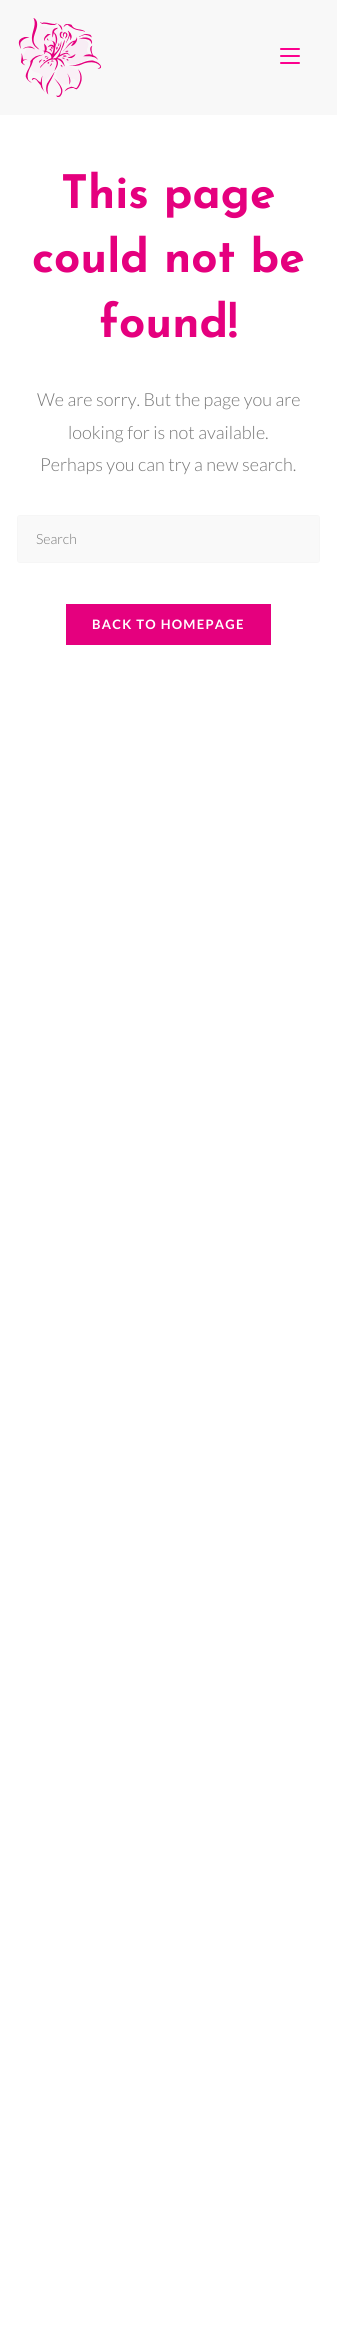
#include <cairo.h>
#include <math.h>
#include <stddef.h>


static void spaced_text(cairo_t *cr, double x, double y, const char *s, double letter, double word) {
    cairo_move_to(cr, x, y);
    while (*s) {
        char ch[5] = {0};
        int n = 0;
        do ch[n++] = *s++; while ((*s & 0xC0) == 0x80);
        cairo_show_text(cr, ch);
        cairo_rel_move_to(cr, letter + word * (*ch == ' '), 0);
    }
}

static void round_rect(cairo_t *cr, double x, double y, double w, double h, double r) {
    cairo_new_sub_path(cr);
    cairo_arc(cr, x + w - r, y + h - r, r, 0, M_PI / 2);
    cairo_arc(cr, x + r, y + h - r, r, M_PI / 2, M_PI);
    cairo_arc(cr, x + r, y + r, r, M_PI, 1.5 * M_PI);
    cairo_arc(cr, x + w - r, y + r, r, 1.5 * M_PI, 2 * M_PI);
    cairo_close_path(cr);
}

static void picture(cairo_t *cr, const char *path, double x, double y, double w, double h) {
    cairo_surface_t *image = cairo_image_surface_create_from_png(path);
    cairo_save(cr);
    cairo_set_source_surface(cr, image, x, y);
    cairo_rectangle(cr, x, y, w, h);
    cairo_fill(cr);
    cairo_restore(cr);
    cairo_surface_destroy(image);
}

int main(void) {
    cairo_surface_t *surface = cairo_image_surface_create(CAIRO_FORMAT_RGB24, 337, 2331);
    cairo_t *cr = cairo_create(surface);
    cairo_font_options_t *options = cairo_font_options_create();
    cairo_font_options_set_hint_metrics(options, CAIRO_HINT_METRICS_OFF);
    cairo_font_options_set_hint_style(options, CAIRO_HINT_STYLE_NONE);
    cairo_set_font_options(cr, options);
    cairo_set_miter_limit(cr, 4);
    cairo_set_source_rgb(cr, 1, 1, 1);
    cairo_paint(cr);
    cairo_set_source_rgb(cr, 0.969, 0.969, 0.969);
    cairo_rectangle(cr, 0, 0, 337, 115);
    cairo_fill(cr);
    picture(cr, "img1.png", 18, 18, 84, 79);
    cairo_set_source_rgb(cr, 0.988, 0, 0.557);
    round_rect(cr, 280, 55, 20, 2, 1);
    cairo_fill(cr);
    round_rect(cr, 280, 48, 20, 2, 1);
    cairo_fill(cr);
    round_rect(cr, 280, 62, 20, 2, 1);
    cairo_fill(cr);
    cairo_select_font_face(cr, "Josefin Sans", CAIRO_FONT_SLANT_NORMAL, CAIRO_FONT_WEIGHT_BOLD);
    cairo_set_font_size(cr, 46);
    cairo_set_source_rgb(cr, 0.898, 0, 0.494);
    cairo_move_to(cr, 61, 208);
    cairo_show_text(cr, "This page");
    cairo_move_to(cr, 32, 272);
    cairo_show_text(cr, "could not be");
    cairo_move_to(cr, 99, 337);
    cairo_show_text(cr, "found!");
    cairo_select_font_face(cr, "Lato Light", CAIRO_FONT_SLANT_NORMAL, CAIRO_FONT_WEIGHT_NORMAL);
    cairo_set_font_size(cr, 18);
    cairo_set_source_rgb(cr, 0.467, 0.467, 0.467);
    cairo_move_to(cr, 37, 406);
    cairo_show_text(cr, "We are sorry. But the page you are");
    cairo_move_to(cr, 68, 439);
    cairo_show_text(cr, "looking for is not available.");
    cairo_move_to(cr, 40, 471);
    cairo_show_text(cr, "Perhaps you can try a new search.");
    cairo_set_source_rgb(cr, 0.976, 0.976, 0.976);
    round_rect(cr, 17.5, 515.5, 302, 47, 2.5);
    cairo_fill_preserve(cr);
    cairo_set_source_rgb(cr, 0.961, 0.961, 0.961);
    cairo_set_line_width(cr, 1);
    cairo_stroke(cr);
    cairo_set_font_size(cr, 14);
    cairo_set_source_rgb(cr, 0.467, 0.467, 0.467);
    cairo_move_to(cr, 36, 544);
    cairo_show_text(cr, "Search");
    cairo_set_source_rgb(cr, 0.898, 0, 0.494);
    cairo_rectangle(cr, 66, 604, 205, 41);
    cairo_fill(cr);
    cairo_select_font_face(cr, "Lato", CAIRO_FONT_SLANT_NORMAL, CAIRO_FONT_WEIGHT_BOLD);
    cairo_set_font_size(cr, 13);
    cairo_set_source_rgb(cr, 1, 1, 1);
    spaced_text(cr, 92, 629, "BACK TO HOMEPAGE", 1.25, 0);
    cairo_surface_write_to_png(surface, "page.png");
    cairo_font_options_destroy(options);
    cairo_destroy(cr);
    cairo_surface_destroy(surface);
    return 0;
}
